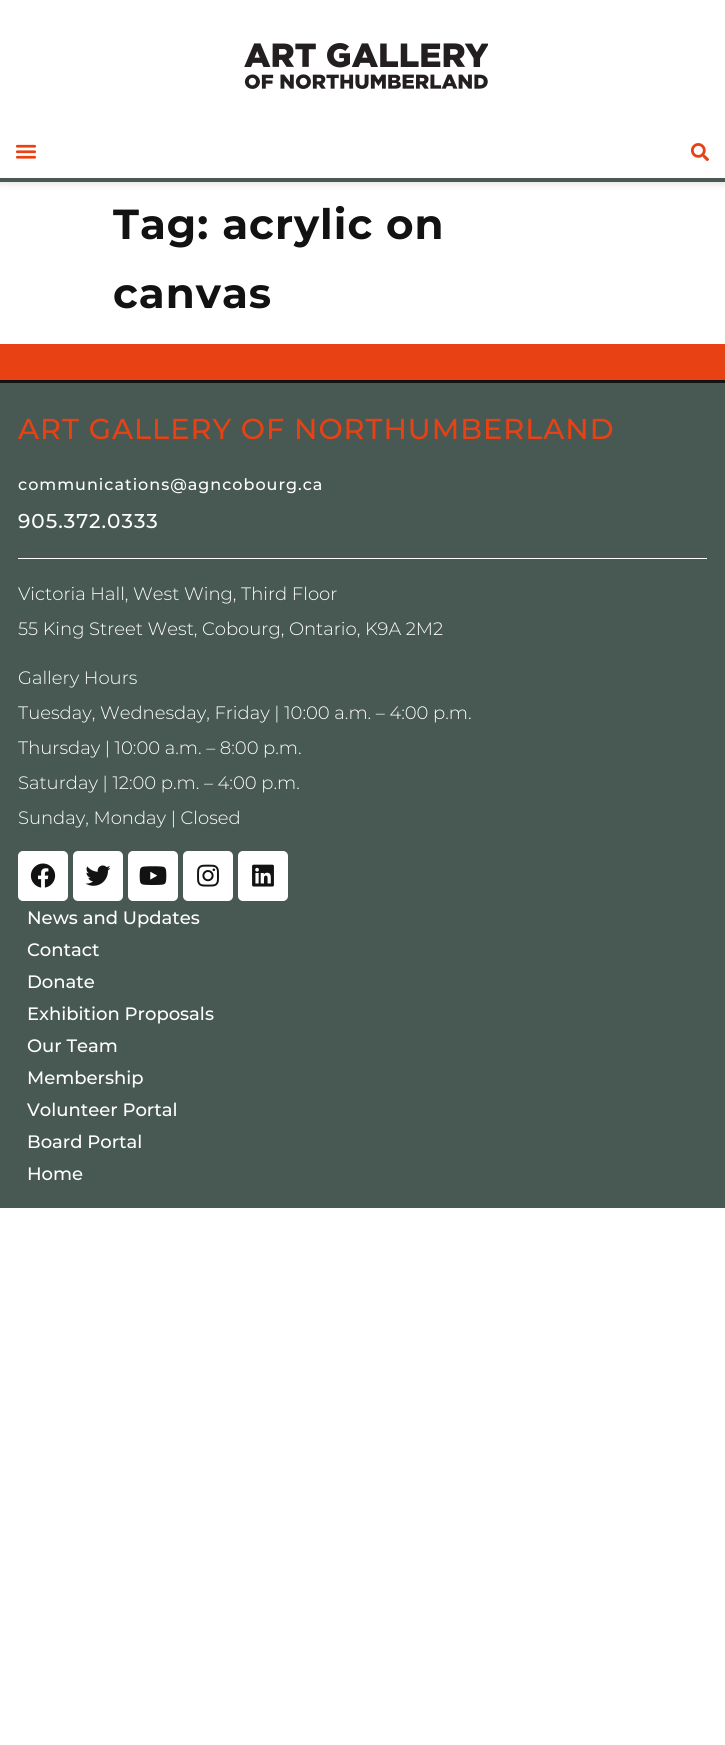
#include <cairo.h>
#include <math.h>
#include <stddef.h>


static void spaced_text(cairo_t *cr, double x, double y, const char *s, double letter, double word) {
    cairo_move_to(cr, x, y);
    while (*s) {
        char ch[5] = {0};
        int n = 0;
        do ch[n++] = *s++; while ((*s & 0xC0) == 0x80);
        cairo_show_text(cr, ch);
        cairo_rel_move_to(cr, letter + word * (*ch == ' '), 0);
    }
}

static void round_rect(cairo_t *cr, double x, double y, double w, double h, double r) {
    cairo_new_sub_path(cr);
    cairo_arc(cr, x + w - r, y + h - r, r, 0, M_PI / 2);
    cairo_arc(cr, x + r, y + h - r, r, M_PI / 2, M_PI);
    cairo_arc(cr, x + r, y + r, r, M_PI, 1.5 * M_PI);
    cairo_arc(cr, x + w - r, y + r, r, 1.5 * M_PI, 2 * M_PI);
    cairo_close_path(cr);
}

static void shadow(cairo_t *cr, double x, double y, double w, double h, double r, double blur, double alpha) {
    cairo_push_group_with_content(cr, CAIRO_CONTENT_ALPHA);
    cairo_set_operator(cr, CAIRO_OPERATOR_SOURCE);
    for (int i = 15; i >= -15 && fmin(w, h) + blur * i / 3 > 0; i -= 2) {
        double e = blur * i / 6;
        cairo_set_source_rgba(cr, 0, 0, 0, alpha * erfc((i - 1) / 8.5) / 2);
        round_rect(cr, x - e, y - e, w + 2 * e, h + 2 * e, fmax(0, fmin(r + e + blur * .6, fmin(w, h) / 2 + e)));
        cairo_fill(cr);
    }
    cairo_pattern_t *soft = cairo_pop_group(cr);
    cairo_mask(cr, soft);
    cairo_pattern_destroy(soft);
}

static void picture(cairo_t *cr, const char *path, double x, double y, double w, double h) {
    cairo_surface_t *image = cairo_image_surface_create_from_png(path);
    cairo_save(cr);
    cairo_set_source_surface(cr, image, x, y);
    cairo_rectangle(cr, x, y, w, h);
    cairo_fill(cr);
    cairo_restore(cr);
    cairo_surface_destroy(image);
}

int main(void) {
    cairo_surface_t *surface = cairo_image_surface_create(CAIRO_FORMAT_RGB24, 725, 1745);
    cairo_t *cr = cairo_create(surface);
    cairo_font_options_t *options = cairo_font_options_create();
    cairo_font_options_set_hint_metrics(options, CAIRO_HINT_METRICS_OFF);
    cairo_font_options_set_hint_style(options, CAIRO_HINT_STYLE_NONE);
    cairo_set_font_options(cr, options);
    cairo_set_miter_limit(cr, 4);
    cairo_set_source_rgb(cr, 1, 1, 1);
    cairo_paint(cr);
    cairo_set_source_rgb(cr, 0, 0, 0);
    shadow(cr, 0, 0, 725, 182, 0, 5, 0.16);
    cairo_set_source_rgb(cr, 1, 1, 1);
    cairo_rectangle(cr, 0, 0, 725, 178);
    cairo_fill(cr);
    cairo_set_source_rgb(cr, 0.282, 0.349, 0.329);
    cairo_rectangle(cr, 0, 178, 725, 4);
    cairo_fill(cr);
    picture(cr, "img1.png", 244, 43, 244, 46);
    picture(cr, "img2.png", 15, 144, 22, 15);
    picture(cr, "img3.png", 690, 143, 19, 19);
    cairo_select_font_face(cr, "Montserrat", CAIRO_FONT_SLANT_NORMAL, CAIRO_FONT_WEIGHT_BOLD);
    cairo_set_font_size(cr, 42);
    cairo_set_source_rgb(cr, 0.071, 0.071, 0.071);
    spaced_text(cr, 113, 239, "Tag: acrylic on", 1, 0);
    spaced_text(cr, 113, 308, "canvas", 1, 0);
    cairo_set_source_rgb(cr, 0.91, 0.255, 0.075);
    cairo_rectangle(cr, 0, 344, 725, 36);
    cairo_fill(cr);
    cairo_set_source_rgb(cr, 0.282, 0.349, 0.329);
    cairo_rectangle(cr, 0, 383, 725, 825);
    cairo_fill(cr);
    cairo_set_source_rgb(cr, 0.075, 0.075, 0.075);
    cairo_rectangle(cr, 0, 380, 725, 3);
    cairo_fill(cr);
    cairo_select_font_face(cr, "Montserrat Medium", CAIRO_FONT_SLANT_NORMAL, CAIRO_FONT_WEIGHT_NORMAL);
    cairo_set_font_size(cr, 28.8);
    cairo_set_source_rgb(cr, 0.91, 0.255, 0.075);
    spaced_text(cr, 18, 439, "ART GALLERY OF NORTHUMBERLAND", 1, 0);
    cairo_set_font_size(cr, 16);
    cairo_set_source_rgb(cr, 1, 1, 1);
    spaced_text(cr, 18, 490, "communications@agncobourg.ca", 1, 0);
    cairo_set_font_size(cr, 20);
    spaced_text(cr, 18, 528, "905.372.0333", 1, 0);
    cairo_rectangle(cr, 18, 558, 689, 1);
    cairo_fill(cr);
    cairo_select_font_face(cr, "Montserrat Light", CAIRO_FONT_SLANT_NORMAL, CAIRO_FONT_WEIGHT_NORMAL);
    cairo_set_font_size(cr, 18);
    cairo_move_to(cr, 18, 600);
    cairo_show_text(cr, "Victoria Hall, West Wing, Third Floor");
    cairo_move_to(cr, 18, 635);
    cairo_show_text(cr, "55 King Street West, Cobourg, Ontario, K9A 2M2");
    cairo_move_to(cr, 18, 684);
    cairo_show_text(cr, "Gallery Hours");
    cairo_move_to(cr, 18, 719);
    cairo_show_text(cr, "Tuesday, Wednesday, Friday | 10:00 a.m. – 4:00 p.m.");
    cairo_move_to(cr, 18, 754);
    cairo_show_text(cr, "Thursday | 10:00 a.m. – 8:00 p.m.");
    cairo_move_to(cr, 18, 789);
    cairo_show_text(cr, "Saturday | 12:00 p.m. – 4:00 p.m.");
    cairo_move_to(cr, 18, 824);
    cairo_show_text(cr, "Sunday, Monday | Closed");
    round_rect(cr, 18, 851, 50, 50, 5);
    cairo_fill(cr);
    picture(cr, "img4.png", 30, 863, 26, 25);
    round_rect(cr, 73, 851, 50, 50, 5);
    cairo_fill(cr);
    picture(cr, "img5.png", 85, 865, 26, 21);
    round_rect(cr, 128, 851, 50, 50, 5);
    cairo_fill(cr);
    picture(cr, "img6.png", 139, 866, 28, 19);
    round_rect(cr, 183, 851, 50, 50, 5);
    cairo_fill(cr);
    picture(cr, "img7.png", 197, 864, 22, 23);
    round_rect(cr, 238, 851, 50, 50, 5);
    cairo_fill(cr);
    picture(cr, "img8.png", 252, 864, 22, 23);
    cairo_select_font_face(cr, "Montserrat Medium", CAIRO_FONT_SLANT_NORMAL, CAIRO_FONT_WEIGHT_NORMAL);
    cairo_move_to(cr, 27, 924);
    cairo_show_text(cr, "News and Updates");
    cairo_move_to(cr, 27, 956);
    cairo_show_text(cr, "Contact");
    cairo_move_to(cr, 27, 988);
    cairo_show_text(cr, "Donate");
    cairo_move_to(cr, 27, 1020);
    cairo_show_text(cr, "Exhibition Proposals");
    cairo_move_to(cr, 27, 1052);
    cairo_show_text(cr, "Our Team");
    cairo_move_to(cr, 27, 1084);
    cairo_show_text(cr, "Membership");
    cairo_move_to(cr, 27, 1116);
    cairo_show_text(cr, "Volunteer Portal");
    cairo_move_to(cr, 27, 1148);
    cairo_show_text(cr, "Board Portal");
    cairo_move_to(cr, 27, 1180);
    cairo_show_text(cr, "Home");
    cairo_surface_write_to_png(surface, "page.png");
    cairo_font_options_destroy(options);
    cairo_destroy(cr);
    cairo_surface_destroy(surface);
    return 0;
}
